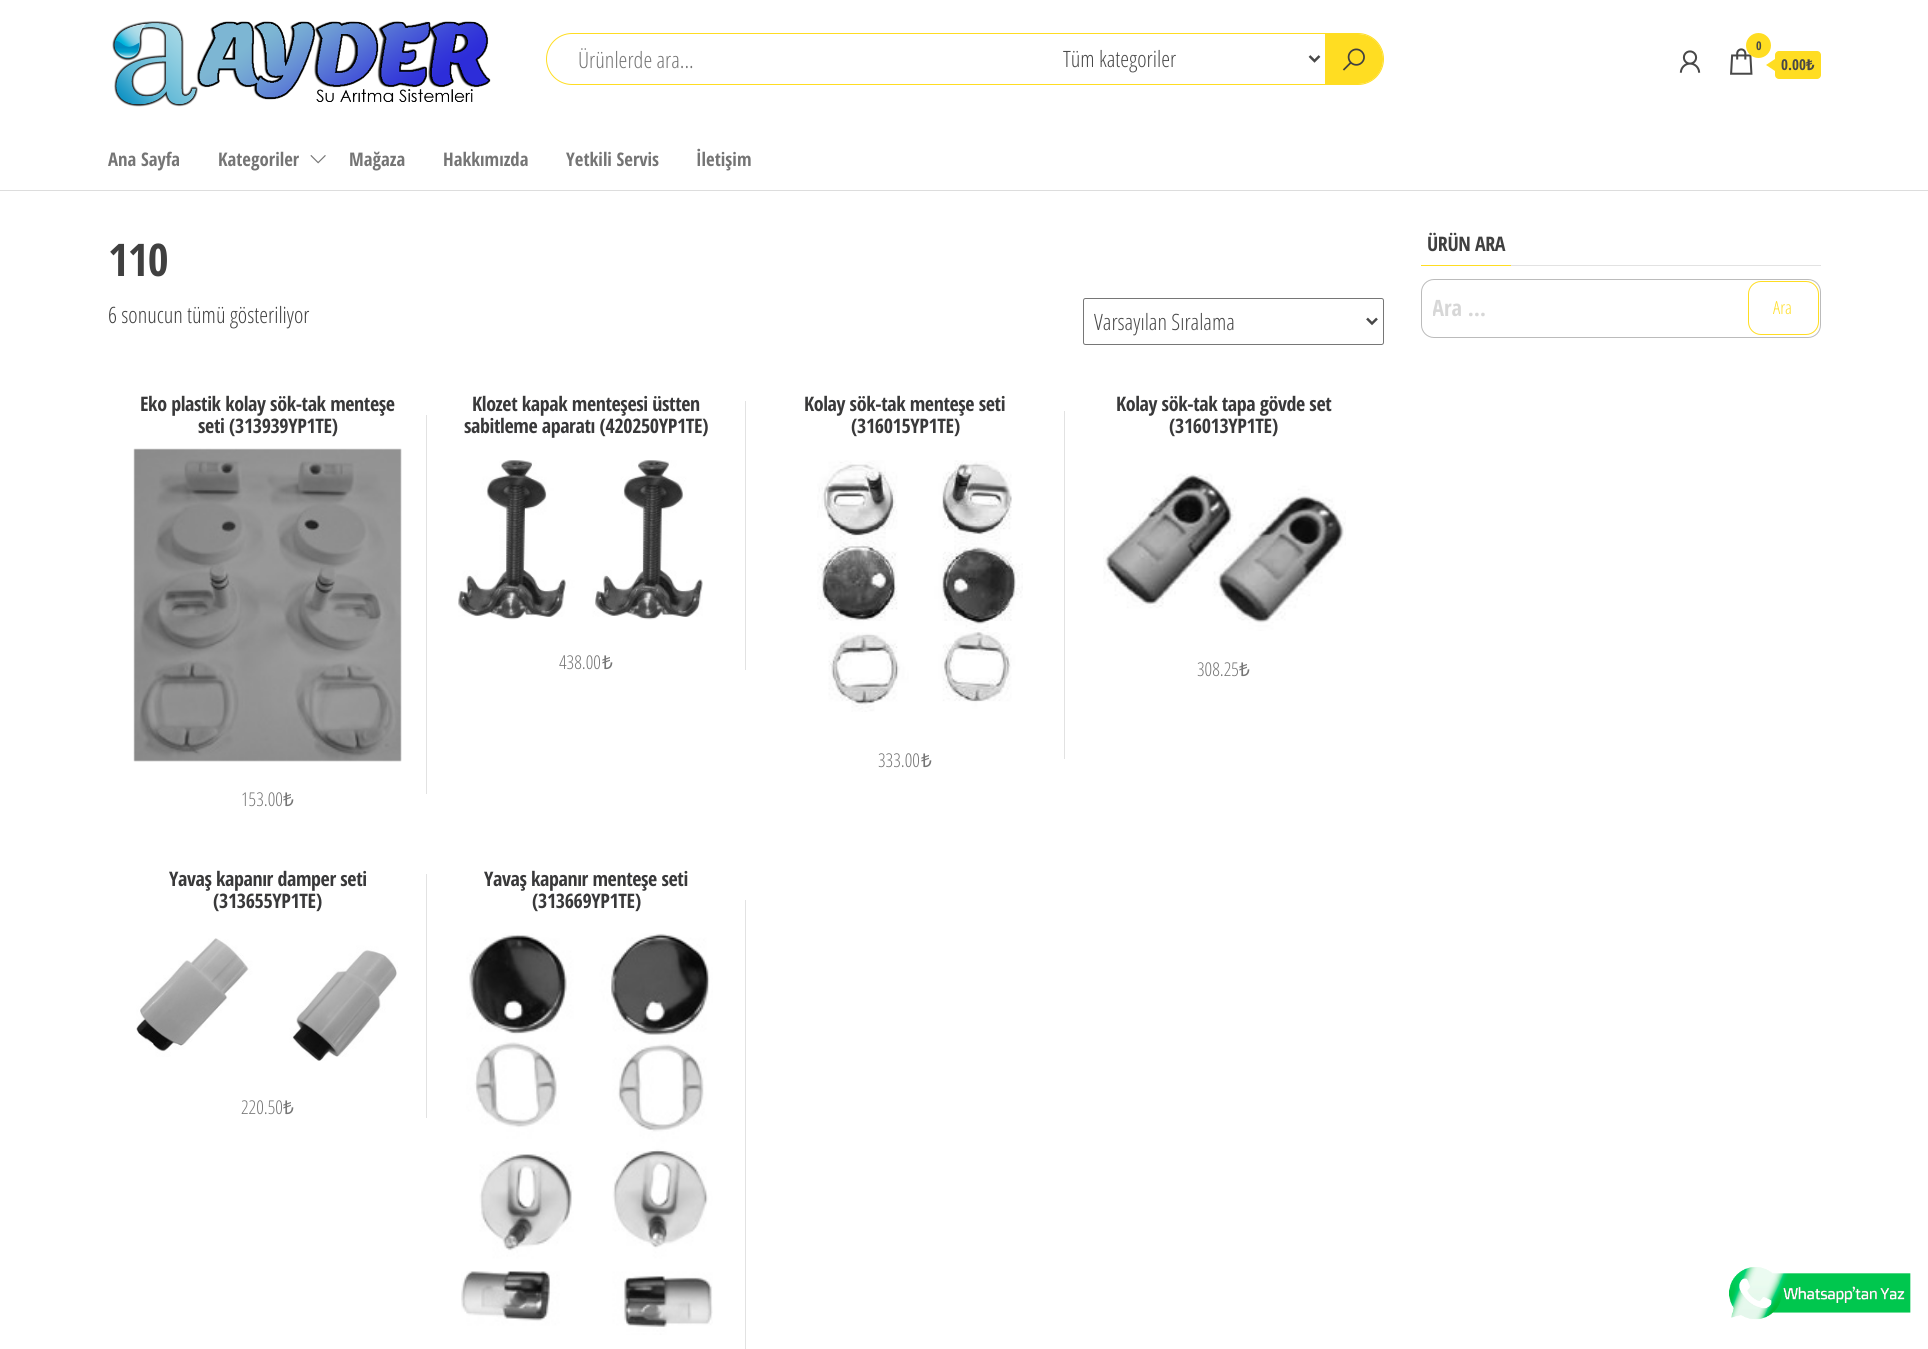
#include <cairo.h>
#include <math.h>
#include <stddef.h>


static void spaced_text(cairo_t *cr, double x, double y, const char *s, double letter, double word) {
    cairo_move_to(cr, x, y);
    while (*s) {
        char ch[5] = {0};
        int n = 0;
        do ch[n++] = *s++; while ((*s & 0xC0) == 0x80);
        cairo_show_text(cr, ch);
        cairo_rel_move_to(cr, letter + word * (*ch == ' '), 0);
    }
}

static void round_rect(cairo_t *cr, double x, double y, double w, double h, double r) {
    cairo_new_sub_path(cr);
    cairo_arc(cr, x + w - r, y + h - r, r, 0, M_PI / 2);
    cairo_arc(cr, x + r, y + h - r, r, M_PI / 2, M_PI);
    cairo_arc(cr, x + r, y + r, r, M_PI, 1.5 * M_PI);
    cairo_arc(cr, x + w - r, y + r, r, 1.5 * M_PI, 2 * M_PI);
    cairo_close_path(cr);
}

static void picture(cairo_t *cr, const char *path, double x, double y, double w, double h) {
    cairo_surface_t *image = cairo_image_surface_create_from_png(path);
    cairo_save(cr);
    cairo_set_source_surface(cr, image, x, y);
    cairo_rectangle(cr, x, y, w, h);
    cairo_fill(cr);
    cairo_restore(cr);
    cairo_surface_destroy(image);
}

int main(void) {
    cairo_surface_t *surface = cairo_image_surface_create(CAIRO_FORMAT_RGB24, 1928, 1349);
    cairo_t *cr = cairo_create(surface);
    cairo_font_options_t *options = cairo_font_options_create();
    cairo_font_options_set_hint_metrics(options, CAIRO_HINT_METRICS_OFF);
    cairo_font_options_set_hint_style(options, CAIRO_HINT_STYLE_NONE);
    cairo_set_font_options(cr, options);
    cairo_set_miter_limit(cr, 4);
    cairo_set_source_rgb(cr, 1, 1, 1);
    cairo_paint(cr);
    picture(cr, "img1.png", 112, 21, 379, 86);
    round_rect(cr, 546.5, 33.5, 837, 51, 25.5);
    cairo_set_source_rgb(cr, 1, 0.867, 0.133);
    cairo_set_line_width(cr, 1);
    cairo_stroke(cr);
    cairo_select_font_face(cr, "Open Sans Condensed Light", CAIRO_FONT_SLANT_NORMAL, CAIRO_FONT_WEIGHT_NORMAL);
    cairo_set_font_size(cr, 22.5);
    cairo_set_source_rgb(cr, 0.459, 0.459, 0.459);
    cairo_move_to(cr, 578, 68);
    cairo_show_text(cr, "Ürünlerde ara...");
    cairo_new_path(cr);
    cairo_move_to(cr, 1309.5, 56);
    cairo_line_to(cr, 1314.5, 61);
    cairo_line_to(cr, 1319.5, 56);
    cairo_set_source_rgb(cr, 0.282, 0.282, 0.282);
    cairo_set_line_width(cr, 2.5);
    cairo_stroke(cr);
    cairo_move_to(cr, 1063, 67);
    cairo_show_text(cr, "Tüm kategoriler");
    cairo_set_source_rgb(cr, 1, 0.867, 0.133);
    cairo_new_path(cr);
    cairo_move_to(cr, 1325, 34);
    cairo_line_to(cr, 1358, 34);
    cairo_curve_to(cr, 1372, 34, 1383, 45, 1383, 59);
    cairo_curve_to(cr, 1383, 73, 1372, 84, 1358, 84);
    cairo_line_to(cr, 1325, 84);
    cairo_close_path(cr);
    cairo_fill(cr);
    picture(cr, "img2.png", 1342, 48, 23, 23);
    picture(cr, "img3.png", 1679, 50, 22, 23);
    picture(cr, "img4.png", 1730, 48, 23, 27);
    cairo_arc(cr, 1758.5, 45.5, 12.5, 0, 2 * M_PI);
    cairo_fill(cr);
    cairo_select_font_face(cr, "Open Sans Condensed", CAIRO_FONT_SLANT_NORMAL, CAIRO_FONT_WEIGHT_BOLD);
    cairo_set_font_size(cr, 12);
    cairo_set_source_rgb(cr, 0.282, 0.282, 0.282);
    cairo_move_to(cr, 1756, 50);
    cairo_show_text(cr, "0");
    cairo_set_source_rgb(cr, 1, 0.867, 0.133);
    round_rect(cr, 1775, 51, 46, 28, 4);
    cairo_fill(cr);
    cairo_new_path(cr);
    cairo_move_to(cr, 1775, 59);
    cairo_line_to(cr, 1775, 71);
    cairo_line_to(cr, 1766, 65);
    cairo_close_path(cr);
    cairo_fill(cr);
    cairo_set_font_size(cr, 15);
    cairo_set_source_rgb(cr, 0.282, 0.282, 0.282);
    cairo_move_to(cr, 1781, 70);
    cairo_show_text(cr, "0.00");
    cairo_select_font_face(cr, "Noto Sans", CAIRO_FONT_SLANT_NORMAL, CAIRO_FONT_WEIGHT_BOLD);
    cairo_move_to(cr, 1806, 70);
    cairo_show_text(cr, "₺");
    cairo_set_source_rgb(cr, 0.867, 0.867, 0.867);
    cairo_rectangle(cr, 0, 190, 1928, 1);
    cairo_fill(cr);
    cairo_select_font_face(cr, "Open Sans Condensed", CAIRO_FONT_SLANT_NORMAL, CAIRO_FONT_WEIGHT_BOLD);
    cairo_set_font_size(cr, 18.75);
    cairo_set_source_rgb(cr, 0.459, 0.459, 0.459);
    cairo_move_to(cr, 108, 166);
    cairo_show_text(cr, "Ana Sayfa");
    cairo_move_to(cr, 218, 166);
    cairo_show_text(cr, "Kategoriler");
    picture(cr, "img5.png", 310, 155, 16, 9);
    cairo_move_to(cr, 349, 166);
    cairo_show_text(cr, "Mağaza");
    cairo_move_to(cr, 443, 166);
    cairo_show_text(cr, "Hakkımızda");
    cairo_move_to(cr, 566, 166);
    cairo_show_text(cr, "Yetkili Servis");
    cairo_move_to(cr, 696, 166);
    cairo_show_text(cr, "İletişim");
    cairo_set_font_size(cr, 45);
    cairo_set_source_rgb(cr, 0.251, 0.251, 0.251);
    spaced_text(cr, 108, 276, "110", -1, 0);
    cairo_select_font_face(cr, "Open Sans Condensed Light", CAIRO_FONT_SLANT_NORMAL, CAIRO_FONT_WEIGHT_NORMAL);
    cairo_set_font_size(cr, 22.5);
    cairo_move_to(cr, 108, 323);
    cairo_show_text(cr, "6 sonucun tümü gösteriliyor");
    round_rect(cr, 1083.5, 298.5, 300, 46, 2);
    cairo_set_source_rgb(cr, 0.463, 0.463, 0.463);
    cairo_set_line_width(cr, 1);
    cairo_stroke(cr);
    cairo_new_path(cr);
    cairo_move_to(cr, 1367, 318.5);
    cairo_line_to(cr, 1372, 323.5);
    cairo_line_to(cr, 1377, 318.5);
    cairo_set_source_rgb(cr, 0.282, 0.282, 0.282);
    cairo_set_line_width(cr, 2.5);
    cairo_stroke(cr);
    cairo_move_to(cr, 1094, 330);
    cairo_show_text(cr, "Varsayılan Sıralama");
    cairo_select_font_face(cr, "Open Sans Condensed", CAIRO_FONT_SLANT_NORMAL, CAIRO_FONT_WEIGHT_BOLD);
    cairo_set_font_size(cr, 20);
    cairo_set_source_rgb(cr, 0.224, 0.224, 0.227);
    spaced_text(cr, 140, 411, "Eko plastik kolay sök-tak menteşe", -0.4, 0);
    spaced_text(cr, 198, 433, "seti (313939YP1TE)", -0.4, 0);
    picture(cr, "img6.png", 133, 448, 269, 314);
    cairo_select_font_face(cr, "Open Sans Condensed Light", CAIRO_FONT_SLANT_NORMAL, CAIRO_FONT_WEIGHT_NORMAL);
    cairo_set_font_size(cr, 19);
    cairo_set_source_rgb(cr, 0.459, 0.459, 0.459);
    cairo_move_to(cr, 241, 806);
    cairo_show_text(cr, "153.00");
    cairo_select_font_face(cr, "Noto Sans", CAIRO_FONT_SLANT_NORMAL, CAIRO_FONT_WEIGHT_NORMAL);
    cairo_move_to(cr, 283, 806);
    cairo_show_text(cr, "₺");
    cairo_set_source_rgb(cr, 0.886, 0.886, 0.886);
    cairo_rectangle(cr, 426, 415, 1, 379);
    cairo_fill(cr);
    cairo_select_font_face(cr, "Open Sans Condensed", CAIRO_FONT_SLANT_NORMAL, CAIRO_FONT_WEIGHT_BOLD);
    cairo_set_font_size(cr, 20);
    cairo_set_source_rgb(cr, 0.224, 0.224, 0.227);
    spaced_text(cr, 472, 411, "Klozet kapak menteşesi üstten", -0.4, 0);
    spaced_text(cr, 464, 433, "sabitleme aparatı (420250YP1TE)", -0.4, 0);
    picture(cr, "img7.png", 458, 460, 245, 160);
    cairo_select_font_face(cr, "Open Sans Condensed Light", CAIRO_FONT_SLANT_NORMAL, CAIRO_FONT_WEIGHT_NORMAL);
    cairo_set_font_size(cr, 19);
    cairo_set_source_rgb(cr, 0.459, 0.459, 0.459);
    cairo_move_to(cr, 559, 669);
    cairo_show_text(cr, "438.00");
    cairo_select_font_face(cr, "Noto Sans", CAIRO_FONT_SLANT_NORMAL, CAIRO_FONT_WEIGHT_NORMAL);
    cairo_move_to(cr, 602, 669);
    cairo_show_text(cr, "₺");
    cairo_set_source_rgb(cr, 0.886, 0.886, 0.886);
    cairo_rectangle(cr, 745, 401, 1, 269);
    cairo_fill(cr);
    cairo_select_font_face(cr, "Open Sans Condensed", CAIRO_FONT_SLANT_NORMAL, CAIRO_FONT_WEIGHT_BOLD);
    cairo_set_font_size(cr, 20);
    cairo_set_source_rgb(cr, 0.224, 0.224, 0.227);
    spaced_text(cr, 804, 411, "Kolay sök-tak menteşe seti", -0.4, 0);
    spaced_text(cr, 851, 433, "(316015YP1TE)", -0.4, 0);
    picture(cr, "img8.png", 817, 460, 206, 252);
    cairo_select_font_face(cr, "Open Sans Condensed Light", CAIRO_FONT_SLANT_NORMAL, CAIRO_FONT_WEIGHT_NORMAL);
    cairo_set_font_size(cr, 19);
    cairo_set_source_rgb(cr, 0.459, 0.459, 0.459);
    cairo_move_to(cr, 878, 767);
    cairo_show_text(cr, "333.00");
    cairo_select_font_face(cr, "Noto Sans", CAIRO_FONT_SLANT_NORMAL, CAIRO_FONT_WEIGHT_NORMAL);
    cairo_move_to(cr, 921, 767);
    cairo_show_text(cr, "₺");
    cairo_set_source_rgb(cr, 0.886, 0.886, 0.886);
    cairo_rectangle(cr, 1064, 411, 1, 348);
    cairo_fill(cr);
    cairo_select_font_face(cr, "Open Sans Condensed", CAIRO_FONT_SLANT_NORMAL, CAIRO_FONT_WEIGHT_BOLD);
    cairo_set_font_size(cr, 20);
    cairo_set_source_rgb(cr, 0.224, 0.224, 0.227);
    spaced_text(cr, 1116, 411, "Kolay sök-tak tapa gövde set", -0.4, 0);
    spaced_text(cr, 1169, 433, "(316013YP1TE)", -0.4, 0);
    picture(cr, "img9.png", 1103, 473, 243, 158);
    cairo_select_font_face(cr, "Open Sans Condensed Light", CAIRO_FONT_SLANT_NORMAL, CAIRO_FONT_WEIGHT_NORMAL);
    cairo_set_font_size(cr, 19);
    cairo_set_source_rgb(cr, 0.459, 0.459, 0.459);
    cairo_move_to(cr, 1197, 676);
    cairo_show_text(cr, "308.25");
    cairo_select_font_face(cr, "Noto Sans", CAIRO_FONT_SLANT_NORMAL, CAIRO_FONT_WEIGHT_NORMAL);
    cairo_move_to(cr, 1239, 676);
    cairo_show_text(cr, "₺");
    cairo_select_font_face(cr, "Open Sans Condensed", CAIRO_FONT_SLANT_NORMAL, CAIRO_FONT_WEIGHT_BOLD);
    cairo_set_font_size(cr, 20);
    cairo_set_source_rgb(cr, 0.224, 0.224, 0.227);
    spaced_text(cr, 169, 886, "Yavaş kapanır damper seti", -0.4, 0);
    spaced_text(cr, 213, 908, "(313655YP1TE)", -0.4, 0);
    picture(cr, "img10.png", 136, 938, 262, 123);
    cairo_select_font_face(cr, "Open Sans Condensed Light", CAIRO_FONT_SLANT_NORMAL, CAIRO_FONT_WEIGHT_NORMAL);
    cairo_set_font_size(cr, 19);
    cairo_set_source_rgb(cr, 0.459, 0.459, 0.459);
    cairo_move_to(cr, 241, 1114);
    cairo_show_text(cr, "220.50");
    cairo_select_font_face(cr, "Noto Sans", CAIRO_FONT_SLANT_NORMAL, CAIRO_FONT_WEIGHT_NORMAL);
    cairo_move_to(cr, 283, 1114);
    cairo_show_text(cr, "₺");
    cairo_set_source_rgb(cr, 0.886, 0.886, 0.886);
    cairo_rectangle(cr, 426, 874, 1, 244);
    cairo_fill(cr);
    cairo_select_font_face(cr, "Open Sans Condensed", CAIRO_FONT_SLANT_NORMAL, CAIRO_FONT_WEIGHT_BOLD);
    cairo_set_font_size(cr, 20);
    cairo_set_source_rgb(cr, 0.224, 0.224, 0.227);
    spaced_text(cr, 484, 886, "Yavaş kapanır menteşe seti", -0.4, 0);
    spaced_text(cr, 532, 908, "(313669YP1TE)", -0.4, 0);
    picture(cr, "img11.png", 461, 933, 252, 402);
    cairo_set_source_rgb(cr, 0.886, 0.886, 0.886);
    cairo_rectangle(cr, 745, 900, 1, 449);
    cairo_fill(cr);
    cairo_rectangle(cr, 1511, 265, 310, 1);
    cairo_fill(cr);
    cairo_set_source_rgb(cr, 0.251, 0.251, 0.251);
    spaced_text(cr, 1427, 251, "ÜRÜN ARA", -0.4, 0);
    cairo_set_source_rgb(cr, 1, 0.867, 0.133);
    cairo_rectangle(cr, 1421, 265, 90, 1);
    cairo_fill(cr);
    round_rect(cr, 1421.5, 279.5, 399, 58, 12.5);
    cairo_set_source_rgb(cr, 0.733, 0.733, 0.733);
    cairo_set_line_width(cr, 1);
    cairo_stroke(cr);
    cairo_save(cr);
    cairo_rectangle(cr, 1433, 293, 270, 30);
    cairo_clip(cr);
    cairo_set_font_size(cr, 22.5);
    cairo_set_source_rgb(cr, 0.843, 0.843, 0.843);
    cairo_move_to(cr, 1432, 316);
    cairo_show_text(cr, "Ara …");
    cairo_restore(cr);
    round_rect(cr, 1748.5, 281.5, 70, 53, 12.5);
    cairo_set_source_rgb(cr, 1, 0.867, 0.133);
    cairo_stroke(cr);
    cairo_select_font_face(cr, "Open Sans Condensed Light", CAIRO_FONT_SLANT_NORMAL, CAIRO_FONT_WEIGHT_NORMAL);
    cairo_set_font_size(cr, 18);
    cairo_move_to(cr, 1773, 314);
    cairo_show_text(cr, "Ara");
    picture(cr, "img12.png", 1729, 1267, 182, 53);
    cairo_surface_write_to_png(surface, "page.png");
    cairo_font_options_destroy(options);
    cairo_destroy(cr);
    cairo_surface_destroy(surface);
    return 0;
}
